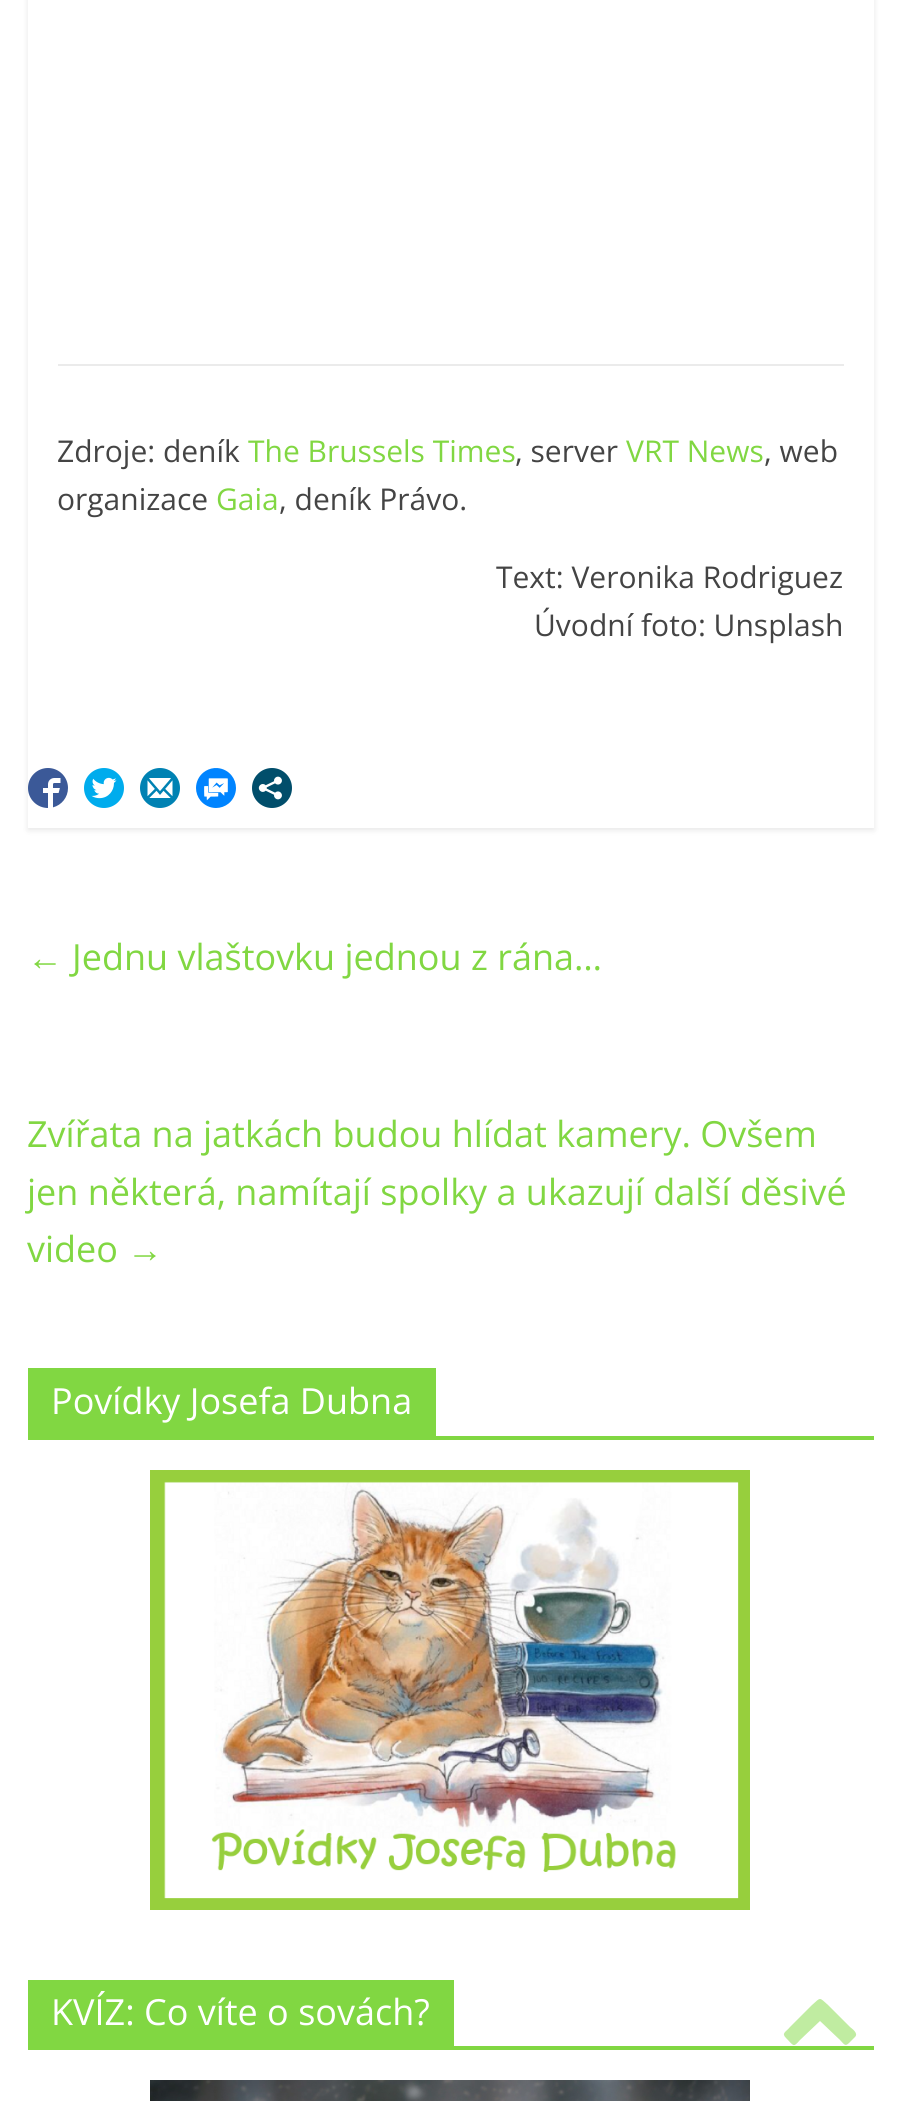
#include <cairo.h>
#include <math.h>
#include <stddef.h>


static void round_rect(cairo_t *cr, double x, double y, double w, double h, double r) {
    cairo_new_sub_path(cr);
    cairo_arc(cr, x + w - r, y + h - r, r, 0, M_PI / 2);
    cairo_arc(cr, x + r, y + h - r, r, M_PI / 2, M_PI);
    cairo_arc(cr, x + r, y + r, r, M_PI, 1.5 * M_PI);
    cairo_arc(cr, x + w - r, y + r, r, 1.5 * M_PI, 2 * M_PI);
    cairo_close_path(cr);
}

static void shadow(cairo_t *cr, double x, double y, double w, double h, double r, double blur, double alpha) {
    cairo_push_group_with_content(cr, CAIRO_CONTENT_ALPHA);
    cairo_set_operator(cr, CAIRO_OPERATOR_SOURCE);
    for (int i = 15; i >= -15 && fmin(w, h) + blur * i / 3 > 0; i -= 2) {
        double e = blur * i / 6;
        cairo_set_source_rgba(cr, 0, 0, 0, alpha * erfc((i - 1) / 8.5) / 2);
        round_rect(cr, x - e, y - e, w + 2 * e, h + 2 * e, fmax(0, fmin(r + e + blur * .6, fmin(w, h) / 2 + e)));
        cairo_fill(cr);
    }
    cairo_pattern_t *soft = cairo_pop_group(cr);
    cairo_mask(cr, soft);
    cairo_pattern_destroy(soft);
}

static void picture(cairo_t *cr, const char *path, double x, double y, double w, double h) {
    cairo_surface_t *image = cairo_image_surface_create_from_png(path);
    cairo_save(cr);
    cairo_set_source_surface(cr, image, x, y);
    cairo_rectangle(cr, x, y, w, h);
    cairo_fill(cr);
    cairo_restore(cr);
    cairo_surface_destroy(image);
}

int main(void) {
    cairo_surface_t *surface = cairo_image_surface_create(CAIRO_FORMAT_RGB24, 899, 2101);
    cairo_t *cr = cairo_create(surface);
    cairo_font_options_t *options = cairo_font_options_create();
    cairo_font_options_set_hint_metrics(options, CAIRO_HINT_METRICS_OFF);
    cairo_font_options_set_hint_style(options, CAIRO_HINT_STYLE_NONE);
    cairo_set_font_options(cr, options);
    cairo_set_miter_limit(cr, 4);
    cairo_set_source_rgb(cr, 1, 1, 1);
    cairo_paint(cr);
    cairo_save(cr);
    cairo_set_fill_rule(cr, CAIRO_FILL_RULE_EVEN_ODD);
    cairo_new_path(cr);
    cairo_move_to(cr, 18, 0);
    cairo_line_to(cr, 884, 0);
    cairo_line_to(cr, 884, 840);
    cairo_line_to(cr, 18, 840);
    cairo_close_path(cr);
    cairo_move_to(cr, 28, -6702);
    cairo_line_to(cr, 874, -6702);
    cairo_line_to(cr, 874, 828);
    cairo_line_to(cr, 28, 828);
    cairo_close_path(cr);
    cairo_clip(cr);
    cairo_set_source_rgb(cr, 0, 0, 0);
    shadow(cr, 28, -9, 846, 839, 0, 3, 0.1);
    cairo_restore(cr);
    cairo_set_source_rgb(cr, 0.918, 0.918, 0.918);
    cairo_rectangle(cr, 58, 364, 786, 2);
    cairo_fill(cr);
    cairo_select_font_face(cr, "Open Sans", CAIRO_FONT_SLANT_NORMAL, CAIRO_FONT_WEIGHT_NORMAL);
    cairo_set_font_size(cr, 30);
    cairo_set_source_rgb(cr, 0.267, 0.267, 0.267);
    cairo_move_to(cr, 57, 462);
    cairo_show_text(cr, "Zdroje: deník");
    cairo_set_source_rgb(cr, 0.506, 0.843, 0.259);
    cairo_move_to(cr, 248, 462);
    cairo_show_text(cr, "The Brussels Times");
    cairo_set_source_rgb(cr, 0.267, 0.267, 0.267);
    cairo_move_to(cr, 515, 462);
    cairo_show_text(cr, ", server");
    cairo_set_source_rgb(cr, 0.506, 0.843, 0.259);
    cairo_move_to(cr, 626, 462);
    cairo_show_text(cr, "VRT News");
    cairo_set_source_rgb(cr, 0.267, 0.267, 0.267);
    cairo_move_to(cr, 764, 462);
    cairo_show_text(cr, ", web");
    cairo_move_to(cr, 57, 510);
    cairo_show_text(cr, "organizace");
    cairo_set_source_rgb(cr, 0.506, 0.843, 0.259);
    cairo_move_to(cr, 216, 510);
    cairo_show_text(cr, "Gaia");
    cairo_set_source_rgb(cr, 0.267, 0.267, 0.267);
    cairo_move_to(cr, 279, 510);
    cairo_show_text(cr, ", deník Právo.");
    cairo_move_to(cr, 496, 588);
    cairo_show_text(cr, "Text: Veronika Rodriguez");
    cairo_move_to(cr, 534, 636);
    cairo_show_text(cr, "Úvodní foto: Unsplash");
    picture(cr, "img1.png", 28, 768, 40, 40);
    picture(cr, "img2.png", 84, 768, 40, 40);
    picture(cr, "img3.png", 140, 768, 40, 40);
    picture(cr, "img4.png", 196, 768, 40, 40);
    picture(cr, "img5.png", 252, 768, 40, 40);
    cairo_select_font_face(cr, "Liberation Serif", CAIRO_FONT_SLANT_NORMAL, CAIRO_FONT_WEIGHT_NORMAL);
    cairo_set_font_size(cr, 36);
    cairo_set_source_rgb(cr, 0.506, 0.843, 0.259);
    cairo_move_to(cr, 27, 970);
    cairo_show_text(cr, "←");
    cairo_select_font_face(cr, "Open Sans", CAIRO_FONT_SLANT_NORMAL, CAIRO_FONT_WEIGHT_NORMAL);
    cairo_move_to(cr, 72, 970);
    cairo_show_text(cr, "Jednu vlaštovku jednou z rána…");
    cairo_move_to(cr, 27, 1147);
    cairo_show_text(cr, "Zvířata na jatkách budou hlídat kamery. Ovšem");
    cairo_move_to(cr, 27, 1205);
    cairo_show_text(cr, "jen některá, namítají spolky a ukazují další děsivé");
    cairo_move_to(cr, 27, 1262);
    cairo_show_text(cr, "video");
    cairo_select_font_face(cr, "Liberation Serif", CAIRO_FONT_SLANT_NORMAL, CAIRO_FONT_WEIGHT_NORMAL);
    cairo_move_to(cr, 127, 1262);
    cairo_show_text(cr, "→");
    cairo_rectangle(cr, 28, 1436, 846, 4);
    cairo_fill(cr);
    cairo_rectangle(cr, 28, 1368, 408, 68);
    cairo_fill(cr);
    cairo_select_font_face(cr, "Open Sans", CAIRO_FONT_SLANT_NORMAL, CAIRO_FONT_WEIGHT_NORMAL);
    cairo_set_source_rgb(cr, 1, 1, 1);
    cairo_move_to(cr, 51, 1414);
    cairo_show_text(cr, "Povídky Josefa Dubna");
    picture(cr, "img6.png", 150, 1470, 600, 440);
    cairo_set_source_rgb(cr, 0.506, 0.843, 0.259);
    cairo_rectangle(cr, 28, 2046, 846, 4);
    cairo_fill(cr);
    cairo_rectangle(cr, 28, 1980, 426, 66);
    cairo_fill(cr);
    cairo_set_source_rgb(cr, 1, 1, 1);
    cairo_move_to(cr, 51, 2025);
    cairo_show_text(cr, "KVÍZ: Co víte o sovách?");
    picture(cr, "img7.png", 150, 2080, 600, 21);
    cairo_set_source_rgb(cr, 0.753, 0.922, 0.631);
    cairo_new_path(cr);
    cairo_move_to(cr, 855, 2037);
    cairo_line_to(cr, 849, 2043);
    cairo_curve_to(cr, 845, 2047, 844, 2044, 840, 2040);
    cairo_line_to(cr, 820, 2021);
    cairo_line_to(cr, 800, 2040);
    cairo_curve_to(cr, 793, 2048, 794, 2046, 786, 2038);
    cairo_curve_to(cr, 781, 2033, 786, 2032, 790, 2027);
    cairo_line_to(cr, 812, 2005);
    cairo_curve_to(cr, 821, 1997, 819, 1997, 828, 2005);
    cairo_line_to(cr, 850, 2027);
    cairo_curve_to(cr, 851, 2028, 859, 2033, 855, 2037);
    cairo_close_path(cr);
    cairo_fill(cr);
    cairo_surface_write_to_png(surface, "page.png");
    cairo_font_options_destroy(options);
    cairo_destroy(cr);
    cairo_surface_destroy(surface);
    return 0;
}
